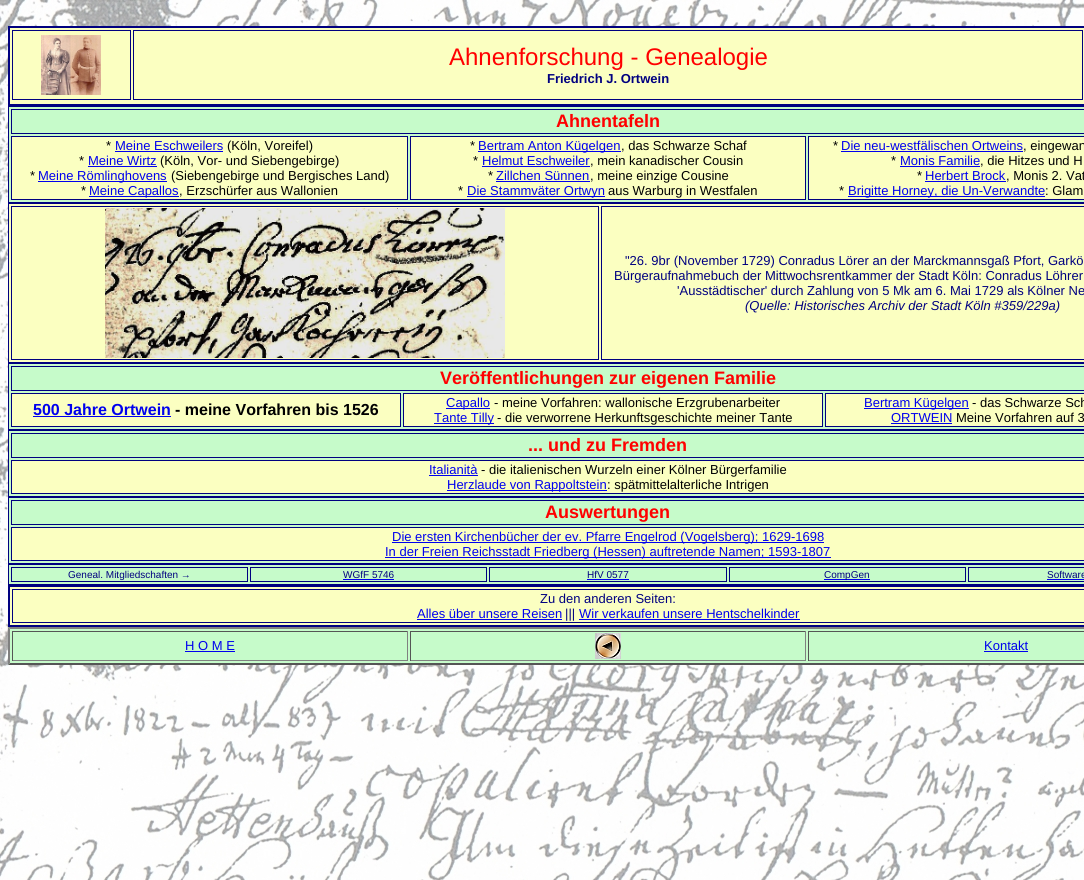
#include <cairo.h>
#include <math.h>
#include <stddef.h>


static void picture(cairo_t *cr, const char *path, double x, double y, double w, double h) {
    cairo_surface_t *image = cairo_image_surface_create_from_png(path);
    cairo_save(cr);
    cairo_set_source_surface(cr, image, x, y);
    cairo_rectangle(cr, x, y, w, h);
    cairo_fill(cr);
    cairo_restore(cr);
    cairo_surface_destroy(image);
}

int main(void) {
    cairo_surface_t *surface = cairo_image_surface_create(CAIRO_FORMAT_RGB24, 1084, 880);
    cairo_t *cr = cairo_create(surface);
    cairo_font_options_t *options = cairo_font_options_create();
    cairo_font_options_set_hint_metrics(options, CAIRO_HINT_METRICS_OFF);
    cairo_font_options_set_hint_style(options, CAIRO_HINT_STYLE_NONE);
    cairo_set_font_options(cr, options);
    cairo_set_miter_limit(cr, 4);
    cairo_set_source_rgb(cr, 1, 1, 1);
    cairo_paint(cr);
    picture(cr, "img1.png", 0, 0, 1084, 880);
    cairo_set_source_rgb(cr, 0.984, 1, 0.757);
    cairo_rectangle(cr, 9, 27, 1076, 78);
    cairo_fill_preserve(cr);
    cairo_set_source_rgb(cr, 0, 0, 0.502);
    cairo_stroke(cr);
    cairo_rectangle(cr, 12.5, 30.5, 118, 69);
    cairo_set_line_width(cr, 1);
    cairo_stroke(cr);
    picture(cr, "img2.png", 41, 35, 60, 60);
    cairo_rectangle(cr, 133.5, 30.5, 949, 69);
    cairo_stroke(cr);
    cairo_select_font_face(cr, "Liberation Sans", CAIRO_FONT_SLANT_NORMAL, CAIRO_FONT_WEIGHT_NORMAL);
    cairo_set_font_size(cr, 24);
    cairo_set_source_rgb(cr, 1, 0, 0);
    cairo_move_to(cr, 449, 65);
    cairo_show_text(cr, "Ahnenforschung - Genealogie");
    cairo_select_font_face(cr, "Liberation Sans", CAIRO_FONT_SLANT_NORMAL, CAIRO_FONT_WEIGHT_BOLD);
    cairo_set_font_size(cr, 13);
    cairo_set_source_rgb(cr, 0, 0, 0.502);
    cairo_move_to(cr, 547, 83);
    cairo_show_text(cr, "Friedrich J. Ortwein");
    cairo_set_source_rgb(cr, 0.776, 0.984, 0.792);
    cairo_rectangle(cr, 8.5, 106.5, 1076, 96);
    cairo_fill_preserve(cr);
    cairo_set_source_rgb(cr, 0, 0, 0.502);
    cairo_stroke(cr);
    cairo_rectangle(cr, 11.5, 109.5, 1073, 24);
    cairo_stroke(cr);
    cairo_set_font_size(cr, 18);
    cairo_set_source_rgb(cr, 1, 0, 0);
    cairo_move_to(cr, 556, 127);
    cairo_show_text(cr, "Ahnentafeln");
    cairo_set_source_rgb(cr, 0.984, 1, 0.757);
    cairo_rectangle(cr, 11.5, 136.5, 396, 63);
    cairo_fill_preserve(cr);
    cairo_set_source_rgb(cr, 0, 0, 0.502);
    cairo_stroke(cr);
    cairo_select_font_face(cr, "Liberation Sans", CAIRO_FONT_SLANT_NORMAL, CAIRO_FONT_WEIGHT_NORMAL);
    cairo_set_font_size(cr, 13);
    cairo_set_source_rgb(cr, 0, 0, 0);
    cairo_move_to(cr, 106, 150);
    cairo_show_text(cr, "*");
    cairo_set_source_rgb(cr, 0, 0, 0.933);
    cairo_move_to(cr, 115, 150);
    cairo_show_text(cr, "Meine Eschweilers");
    cairo_rectangle(cr, 115, 151, 108, 1);
    cairo_fill(cr);
    cairo_set_source_rgb(cr, 0, 0, 0);
    cairo_move_to(cr, 227, 150);
    cairo_show_text(cr, "(Köln, Voreifel)");
    cairo_move_to(cr, 79, 165);
    cairo_show_text(cr, "*");
    cairo_set_source_rgb(cr, 0, 0, 0.933);
    cairo_move_to(cr, 88, 165);
    cairo_show_text(cr, "Meine Wirtz");
    cairo_rectangle(cr, 88, 166, 69, 1);
    cairo_fill(cr);
    cairo_set_source_rgb(cr, 0, 0, 0);
    cairo_move_to(cr, 160, 165);
    cairo_show_text(cr, "(Köln, Vor- und Siebengebirge)");
    cairo_move_to(cr, 30, 180);
    cairo_show_text(cr, "*");
    cairo_set_source_rgb(cr, 0, 0, 0.933);
    cairo_rectangle(cr, 38, 181, 129, 1);
    cairo_fill(cr);
    cairo_move_to(cr, 38, 180);
    cairo_show_text(cr, "Meine Römlinghovens");
    cairo_set_source_rgb(cr, 0, 0, 0);
    cairo_move_to(cr, 171, 180);
    cairo_show_text(cr, "(Siebengebirge und Bergisches Land)");
    cairo_move_to(cr, 81, 195);
    cairo_show_text(cr, "*");
    cairo_set_source_rgb(cr, 0, 0, 0.933);
    cairo_rectangle(cr, 89, 196, 90, 1);
    cairo_fill(cr);
    cairo_move_to(cr, 89, 195);
    cairo_show_text(cr, "Meine Capallos");
    cairo_set_source_rgb(cr, 0, 0, 0);
    cairo_move_to(cr, 179, 195);
    cairo_show_text(cr, ", Erzschürfer aus Wallonien");
    cairo_set_source_rgb(cr, 0.984, 1, 0.757);
    cairo_rectangle(cr, 410.5, 136.5, 395, 63);
    cairo_fill_preserve(cr);
    cairo_set_source_rgb(cr, 0, 0, 0.502);
    cairo_stroke(cr);
    cairo_set_source_rgb(cr, 0, 0, 0);
    cairo_move_to(cr, 470, 150);
    cairo_show_text(cr, "*");
    cairo_set_source_rgb(cr, 0, 0, 0.933);
    cairo_rectangle(cr, 478, 151, 143, 1);
    cairo_fill(cr);
    cairo_move_to(cr, 478, 150);
    cairo_show_text(cr, "Bertram Anton Kügelgen");
    cairo_set_source_rgb(cr, 0, 0, 0);
    cairo_move_to(cr, 621, 150);
    cairo_show_text(cr, ", das Schwarze Schaf");
    cairo_move_to(cr, 473, 165);
    cairo_show_text(cr, "*");
    cairo_set_source_rgb(cr, 0, 0, 0.933);
    cairo_move_to(cr, 482, 165);
    cairo_show_text(cr, "Helmut Eschweiler");
    cairo_set_source_rgb(cr, 0, 0, 0);
    cairo_move_to(cr, 590, 165);
    cairo_show_text(cr, ", mein kanadischer Cousin");
    cairo_set_source_rgb(cr, 0, 0, 0.933);
    cairo_rectangle(cr, 482, 166, 108, 1);
    cairo_fill(cr);
    cairo_set_source_rgb(cr, 0, 0, 0);
    cairo_move_to(cr, 488, 180);
    cairo_show_text(cr, "*");
    cairo_set_source_rgb(cr, 0, 0, 0.933);
    cairo_move_to(cr, 496, 180);
    cairo_show_text(cr, "Zillchen Sünnen");
    cairo_set_source_rgb(cr, 0, 0, 0);
    cairo_move_to(cr, 590, 180);
    cairo_show_text(cr, ", meine einzige Cousine");
    cairo_set_source_rgb(cr, 0, 0, 0.933);
    cairo_rectangle(cr, 496, 181, 94, 1);
    cairo_fill(cr);
    cairo_set_source_rgb(cr, 0, 0, 0);
    cairo_move_to(cr, 458, 195);
    cairo_show_text(cr, "*");
    cairo_set_source_rgb(cr, 0, 0, 0.933);
    cairo_rectangle(cr, 467, 196, 138, 1);
    cairo_fill(cr);
    cairo_move_to(cr, 467, 195);
    cairo_show_text(cr, "Die Stammväter Ortwyn");
    cairo_set_source_rgb(cr, 0, 0, 0);
    cairo_move_to(cr, 608, 195);
    cairo_show_text(cr, "aus Warburg in Westfalen");
    cairo_set_source_rgb(cr, 0.984, 1, 0.757);
    cairo_rectangle(cr, 808.5, 136.5, 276, 63);
    cairo_fill_preserve(cr);
    cairo_set_source_rgb(cr, 0, 0, 0.502);
    cairo_stroke(cr);
    cairo_set_source_rgb(cr, 0, 0, 0);
    cairo_move_to(cr, 833, 150);
    cairo_show_text(cr, "*");
    cairo_set_source_rgb(cr, 0, 0, 0.933);
    cairo_move_to(cr, 841, 150);
    cairo_show_text(cr, "Die neu-westfälischen Ortweins");
    cairo_set_source_rgb(cr, 0, 0, 0);
    cairo_move_to(cr, 1023, 150);
    cairo_show_text(cr, ", eingewan");
    cairo_set_source_rgb(cr, 0, 0, 0.933);
    cairo_rectangle(cr, 841, 151, 182, 1);
    cairo_fill(cr);
    cairo_set_source_rgb(cr, 0, 0, 0);
    cairo_move_to(cr, 891, 165);
    cairo_show_text(cr, "*");
    cairo_set_source_rgb(cr, 0, 0, 0.933);
    cairo_move_to(cr, 900, 165);
    cairo_show_text(cr, "Monis Familie");
    cairo_rectangle(cr, 900, 166, 80, 1);
    cairo_fill(cr);
    cairo_set_source_rgb(cr, 0, 0, 0);
    cairo_move_to(cr, 980, 165);
    cairo_show_text(cr, ", die Hitzes und H");
    cairo_move_to(cr, 917, 180);
    cairo_show_text(cr, "*");
    cairo_set_source_rgb(cr, 0, 0, 0.933);
    cairo_move_to(cr, 925, 180);
    cairo_show_text(cr, "Herbert Brock");
    cairo_set_source_rgb(cr, 0, 0, 0);
    cairo_move_to(cr, 1006, 180);
    cairo_show_text(cr, ", Monis 2. Vat");
    cairo_set_source_rgb(cr, 0, 0, 0.933);
    cairo_rectangle(cr, 925, 181, 81, 1);
    cairo_fill(cr);
    cairo_set_source_rgb(cr, 0, 0, 0);
    cairo_move_to(cr, 839, 195);
    cairo_show_text(cr, "*");
    cairo_set_source_rgb(cr, 0, 0, 0.933);
    cairo_rectangle(cr, 848, 196, 197, 1);
    cairo_fill(cr);
    cairo_move_to(cr, 848, 195);
    cairo_show_text(cr, "Brigitte Horney, die Un-Verwandte");
    cairo_set_source_rgb(cr, 0, 0, 0);
    cairo_move_to(cr, 1045, 195);
    cairo_show_text(cr, ": Glam");
    cairo_set_source_rgb(cr, 0.984, 1, 0.757);
    cairo_rectangle(cr, 8.5, 203.5, 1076, 159);
    cairo_fill_preserve(cr);
    cairo_set_source_rgb(cr, 0, 0, 0.502);
    cairo_stroke(cr);
    cairo_rectangle(cr, 11.5, 206.5, 587, 153);
    cairo_stroke(cr);
    picture(cr, "img3.png", 105, 208, 400, 150);
    cairo_rectangle(cr, 601.5, 206.5, 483, 153);
    cairo_stroke(cr);
    cairo_move_to(cr, 625, 265);
    cairo_show_text(cr, "\"26. 9br (November 1729) Conradus Lörer an der Marckmannsgaß Pfort, Garkö");
    cairo_move_to(cr, 614, 280);
    cairo_show_text(cr, "Bürgeraufnahmebuch der Mittwochsrentkammer der Stadt Köln: Conradus Löhrer");
    cairo_move_to(cr, 677, 295);
    cairo_show_text(cr, "'Ausstädtischer' durch Zahlung von 5 Mk am 6. Mai 1729 als Kölner Ne");
    cairo_select_font_face(cr, "Liberation Sans", CAIRO_FONT_SLANT_ITALIC, CAIRO_FONT_WEIGHT_NORMAL);
    cairo_move_to(cr, 745, 310);
    cairo_show_text(cr, "(Quelle: Historisches Archiv der Stadt Köln #359/229a)");
    cairo_set_source_rgb(cr, 0.776, 0.984, 0.792);
    cairo_rectangle(cr, 8.5, 363.5, 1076, 66);
    cairo_fill_preserve(cr);
    cairo_set_source_rgb(cr, 0, 0, 0.502);
    cairo_stroke(cr);
    cairo_rectangle(cr, 11.5, 366.5, 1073, 24);
    cairo_stroke(cr);
    cairo_select_font_face(cr, "Liberation Sans", CAIRO_FONT_SLANT_NORMAL, CAIRO_FONT_WEIGHT_BOLD);
    cairo_set_font_size(cr, 18);
    cairo_set_source_rgb(cr, 1, 0, 0);
    cairo_move_to(cr, 440, 384);
    cairo_show_text(cr, "Veröffentlichungen zur eigenen Familie");
    cairo_set_source_rgb(cr, 0.984, 1, 0.757);
    cairo_rectangle(cr, 11.5, 393.5, 389, 33);
    cairo_fill_preserve(cr);
    cairo_set_source_rgb(cr, 0, 0, 0.502);
    cairo_stroke(cr);
    cairo_set_font_size(cr, 16);
    cairo_set_source_rgb(cr, 0, 0, 0.933);
    cairo_move_to(cr, 33, 415);
    cairo_show_text(cr, "500 Jahre Ortwein");
    cairo_rectangle(cr, 33, 416, 138, 1);
    cairo_fill(cr);
    cairo_set_source_rgb(cr, 0, 0, 0);
    cairo_move_to(cr, 175, 415);
    cairo_show_text(cr, "- meine Vorfahren bis 1526");
    cairo_set_source_rgb(cr, 0.984, 1, 0.757);
    cairo_rectangle(cr, 403.5, 393.5, 419, 33);
    cairo_fill_preserve(cr);
    cairo_set_source_rgb(cr, 0, 0, 0.502);
    cairo_stroke(cr);
    cairo_set_source_rgb(cr, 0, 0, 0.933);
    cairo_rectangle(cr, 446, 408, 44, 1);
    cairo_fill(cr);
    cairo_select_font_face(cr, "Liberation Sans", CAIRO_FONT_SLANT_NORMAL, CAIRO_FONT_WEIGHT_NORMAL);
    cairo_set_font_size(cr, 13);
    cairo_move_to(cr, 446, 407);
    cairo_show_text(cr, "Capallo");
    cairo_set_source_rgb(cr, 0, 0, 0);
    cairo_move_to(cr, 494, 407);
    cairo_show_text(cr, "- meine Vorfahren: wallonische Erzgrubenarbeiter");
    cairo_set_source_rgb(cr, 0, 0, 0.933);
    cairo_rectangle(cr, 434, 423, 60, 1);
    cairo_fill(cr);
    cairo_move_to(cr, 434, 422);
    cairo_show_text(cr, "Tante Tilly");
    cairo_set_source_rgb(cr, 0, 0, 0);
    cairo_move_to(cr, 497, 422);
    cairo_show_text(cr, "- die verworrene Herkunftsgeschichte meiner Tante");
    cairo_set_source_rgb(cr, 0.984, 1, 0.757);
    cairo_rectangle(cr, 825.5, 393.5, 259, 33);
    cairo_fill_preserve(cr);
    cairo_set_source_rgb(cr, 0, 0, 0.502);
    cairo_stroke(cr);
    cairo_set_source_rgb(cr, 0, 0, 0.933);
    cairo_rectangle(cr, 864, 408, 105, 1);
    cairo_fill(cr);
    cairo_move_to(cr, 864, 407);
    cairo_show_text(cr, "Bertram Kügelgen");
    cairo_set_source_rgb(cr, 0, 0, 0);
    cairo_move_to(cr, 972, 407);
    cairo_show_text(cr, "- das Schwarze Sch");
    cairo_set_source_rgb(cr, 0, 0, 0.933);
    cairo_move_to(cr, 891, 422);
    cairo_show_text(cr, "ORTWEIN");
    cairo_rectangle(cr, 891, 423, 61, 1);
    cairo_fill(cr);
    cairo_set_source_rgb(cr, 0, 0, 0);
    cairo_move_to(cr, 956, 422);
    cairo_show_text(cr, "Meine Vorfahren auf 3");
    cairo_set_source_rgb(cr, 0.776, 0.984, 0.792);
    cairo_rectangle(cr, 8.5, 430.5, 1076, 66);
    cairo_fill_preserve(cr);
    cairo_set_source_rgb(cr, 0, 0, 0.502);
    cairo_stroke(cr);
    cairo_rectangle(cr, 11.5, 433.5, 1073, 24);
    cairo_stroke(cr);
    cairo_select_font_face(cr, "Liberation Sans", CAIRO_FONT_SLANT_NORMAL, CAIRO_FONT_WEIGHT_BOLD);
    cairo_set_font_size(cr, 18);
    cairo_set_source_rgb(cr, 1, 0, 0);
    cairo_move_to(cr, 528, 451);
    cairo_show_text(cr, "... und zu Fremden");
    cairo_set_source_rgb(cr, 0.984, 1, 0.757);
    cairo_rectangle(cr, 11.5, 460.5, 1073, 33);
    cairo_fill_preserve(cr);
    cairo_set_source_rgb(cr, 0, 0, 0.502);
    cairo_stroke(cr);
    cairo_select_font_face(cr, "Liberation Sans", CAIRO_FONT_SLANT_NORMAL, CAIRO_FONT_WEIGHT_NORMAL);
    cairo_set_font_size(cr, 13);
    cairo_set_source_rgb(cr, 0, 0, 0.933);
    cairo_move_to(cr, 429, 474);
    cairo_show_text(cr, "Italianità");
    cairo_rectangle(cr, 429, 475, 49, 1);
    cairo_fill(cr);
    cairo_set_source_rgb(cr, 0, 0, 0);
    cairo_move_to(cr, 481, 474);
    cairo_show_text(cr, "- die italienischen Wurzeln einer Kölner Bürgerfamilie");
    cairo_set_source_rgb(cr, 0, 0, 0.933);
    cairo_rectangle(cr, 447, 490, 160, 1);
    cairo_fill(cr);
    cairo_move_to(cr, 447, 489);
    cairo_show_text(cr, "Herzlaude von Rappoltstein");
    cairo_set_source_rgb(cr, 0, 0, 0);
    cairo_move_to(cr, 607, 489);
    cairo_show_text(cr, ": spätmittelalterliche Intrigen");
    cairo_set_source_rgb(cr, 0.776, 0.984, 0.792);
    cairo_rectangle(cr, 8.5, 497.5, 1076, 66);
    cairo_fill_preserve(cr);
    cairo_set_source_rgb(cr, 0, 0, 0.502);
    cairo_stroke(cr);
    cairo_rectangle(cr, 11.5, 500.5, 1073, 24);
    cairo_stroke(cr);
    cairo_select_font_face(cr, "Liberation Sans", CAIRO_FONT_SLANT_NORMAL, CAIRO_FONT_WEIGHT_BOLD);
    cairo_set_font_size(cr, 18);
    cairo_set_source_rgb(cr, 1, 0, 0);
    cairo_move_to(cr, 545, 518);
    cairo_show_text(cr, "Auswertungen");
    cairo_set_source_rgb(cr, 0.984, 1, 0.757);
    cairo_rectangle(cr, 11.5, 527.5, 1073, 33);
    cairo_fill_preserve(cr);
    cairo_set_source_rgb(cr, 0, 0, 0.502);
    cairo_stroke(cr);
    cairo_set_source_rgb(cr, 0, 0, 0.933);
    cairo_rectangle(cr, 392, 542, 432, 1);
    cairo_fill(cr);
    cairo_select_font_face(cr, "Liberation Sans", CAIRO_FONT_SLANT_NORMAL, CAIRO_FONT_WEIGHT_NORMAL);
    cairo_set_font_size(cr, 13);
    cairo_move_to(cr, 392, 541);
    cairo_show_text(cr, "Die ersten Kirchenbücher der ev. Pfarre Engelrod (Vogelsberg); 1629-1698");
    cairo_rectangle(cr, 385, 557, 446, 1);
    cairo_fill(cr);
    cairo_move_to(cr, 385, 556);
    cairo_show_text(cr, "In der Freien Reichsstadt Friedberg (Hessen) auftretende Namen; 1593-1807");
    cairo_set_source_rgb(cr, 0.776, 0.984, 0.792);
    cairo_rectangle(cr, 8.5, 564.5, 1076, 20);
    cairo_fill_preserve(cr);
    cairo_set_source_rgb(cr, 0, 0, 0.502);
    cairo_stroke(cr);
    cairo_rectangle(cr, 11.5, 567.5, 236, 14);
    cairo_stroke(cr);
    cairo_set_font_size(cr, 10);
    cairo_move_to(cr, 68, 578);
    cairo_show_text(cr, "Geneal. Mitgliedschaften →");
    cairo_rectangle(cr, 250.5, 567.5, 236, 14);
    cairo_stroke(cr);
    cairo_move_to(cr, 343, 578);
    cairo_show_text(cr, "WGfF 5746");
    cairo_set_source_rgb(cr, 0, 0, 0.933);
    cairo_rectangle(cr, 343, 579, 51, 1);
    cairo_fill(cr);
    cairo_rectangle(cr, 489.5, 567.5, 237, 14);
    cairo_set_source_rgb(cr, 0, 0, 0.502);
    cairo_stroke(cr);
    cairo_move_to(cr, 587, 578);
    cairo_show_text(cr, "HfV 0577");
    cairo_set_source_rgb(cr, 0, 0, 0.933);
    cairo_rectangle(cr, 587, 579, 42, 1);
    cairo_fill(cr);
    cairo_rectangle(cr, 729.5, 567.5, 236, 14);
    cairo_set_source_rgb(cr, 0, 0, 0.502);
    cairo_stroke(cr);
    cairo_set_source_rgb(cr, 0, 0, 0.933);
    cairo_rectangle(cr, 824, 579, 46, 1);
    cairo_fill(cr);
    cairo_set_source_rgb(cr, 0, 0, 0.502);
    cairo_move_to(cr, 824, 578);
    cairo_show_text(cr, "CompGen");
    cairo_rectangle(cr, 968.5, 567.5, 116, 14);
    cairo_stroke(cr);
    cairo_move_to(cr, 1047, 578);
    cairo_show_text(cr, "Software");
    cairo_set_source_rgb(cr, 0, 0, 0.933);
    cairo_rectangle(cr, 1047, 579, 37, 1);
    cairo_fill(cr);
    cairo_set_source_rgb(cr, 0.984, 1, 0.757);
    cairo_rectangle(cr, 9, 586, 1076, 40);
    cairo_fill_preserve(cr);
    cairo_set_source_rgb(cr, 0, 0, 0.502);
    cairo_set_line_width(cr, 2);
    cairo_stroke(cr);
    cairo_rectangle(cr, 12.5, 589.5, 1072, 33);
    cairo_set_line_width(cr, 1);
    cairo_stroke(cr);
    cairo_set_font_size(cr, 13);
    cairo_move_to(cr, 540, 603);
    cairo_show_text(cr, "Zu den anderen Seiten:");
    cairo_set_source_rgb(cr, 0, 0, 0.933);
    cairo_move_to(cr, 417, 618);
    cairo_show_text(cr, "Alles über unsere Reisen");
    cairo_rectangle(cr, 417, 619, 145, 1);
    cairo_fill(cr);
    cairo_set_source_rgb(cr, 0, 0, 0.502);
    cairo_move_to(cr, 565, 618);
    cairo_show_text(cr, "|||");
    cairo_set_source_rgb(cr, 0, 0, 0.933);
    cairo_move_to(cr, 579, 618);
    cairo_show_text(cr, "Wir verkaufen unsere Hentschelkinder");
    cairo_rectangle(cr, 579, 619, 221, 1);
    cairo_fill(cr);
    cairo_set_source_rgb(cr, 0.776, 0.984, 0.792);
    cairo_rectangle(cr, 8, 627, 1076, 38);
    cairo_fill(cr);
    cairo_set_source_rgb(cr, 0.502, 0.502, 0.502);
    cairo_new_path(cr);
    cairo_move_to(cr, 8, 627);
    cairo_line_to(cr, 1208, 627);
    cairo_line_to(cr, 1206, 629);
    cairo_line_to(cr, 10, 629);
    cairo_close_path(cr);
    cairo_fill(cr);
    cairo_set_source_rgb(cr, 0.333, 0.333, 0.333);
    cairo_new_path(cr);
    cairo_move_to(cr, 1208, 665);
    cairo_line_to(cr, 8, 665);
    cairo_line_to(cr, 10, 663);
    cairo_line_to(cr, 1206, 663);
    cairo_close_path(cr);
    cairo_fill(cr);
    cairo_set_source_rgb(cr, 0.502, 0.502, 0.502);
    cairo_new_path(cr);
    cairo_move_to(cr, 8, 665);
    cairo_line_to(cr, 8, 627);
    cairo_line_to(cr, 10, 629);
    cairo_line_to(cr, 10, 663);
    cairo_close_path(cr);
    cairo_fill(cr);
    cairo_set_source_rgb(cr, 0.333, 0.333, 0.333);
    cairo_rectangle(cr, 12, 631, 396, 1);
    cairo_fill(cr);
    cairo_set_source_rgb(cr, 0.502, 0.502, 0.502);
    cairo_rectangle(cr, 407, 631, 1, 30);
    cairo_fill(cr);
    cairo_rectangle(cr, 12, 660, 396, 1);
    cairo_fill(cr);
    cairo_set_source_rgb(cr, 0.333, 0.333, 0.333);
    cairo_rectangle(cr, 12, 631, 1, 30);
    cairo_fill(cr);
    cairo_set_source_rgb(cr, 0, 0, 0.933);
    cairo_move_to(cr, 185, 650);
    cairo_show_text(cr, "H O M E");
    cairo_rectangle(cr, 185, 651, 50, 1);
    cairo_fill(cr);
    cairo_set_source_rgb(cr, 0.333, 0.333, 0.333);
    cairo_rectangle(cr, 410, 631, 396, 1);
    cairo_fill(cr);
    cairo_set_source_rgb(cr, 0.502, 0.502, 0.502);
    cairo_rectangle(cr, 805, 631, 1, 30);
    cairo_fill(cr);
    cairo_rectangle(cr, 410, 660, 396, 1);
    cairo_fill(cr);
    cairo_set_source_rgb(cr, 0.333, 0.333, 0.333);
    cairo_rectangle(cr, 410, 631, 1, 30);
    cairo_fill(cr);
    picture(cr, "img4.png", 595, 633, 26, 26);
    cairo_rectangle(cr, 808, 631, 276, 1);
    cairo_fill(cr);
    cairo_set_source_rgb(cr, 0.502, 0.502, 0.502);
    cairo_rectangle(cr, 808, 660, 276, 1);
    cairo_fill(cr);
    cairo_set_source_rgb(cr, 0.333, 0.333, 0.333);
    cairo_rectangle(cr, 808, 631, 1, 30);
    cairo_fill(cr);
    cairo_set_source_rgb(cr, 0, 0, 0.933);
    cairo_move_to(cr, 984, 650);
    cairo_show_text(cr, "Kontakt");
    cairo_rectangle(cr, 984, 651, 44, 1);
    cairo_fill(cr);
    cairo_surface_write_to_png(surface, "page.png");
    cairo_font_options_destroy(options);
    cairo_destroy(cr);
    cairo_surface_destroy(surface);
    return 0;
}
